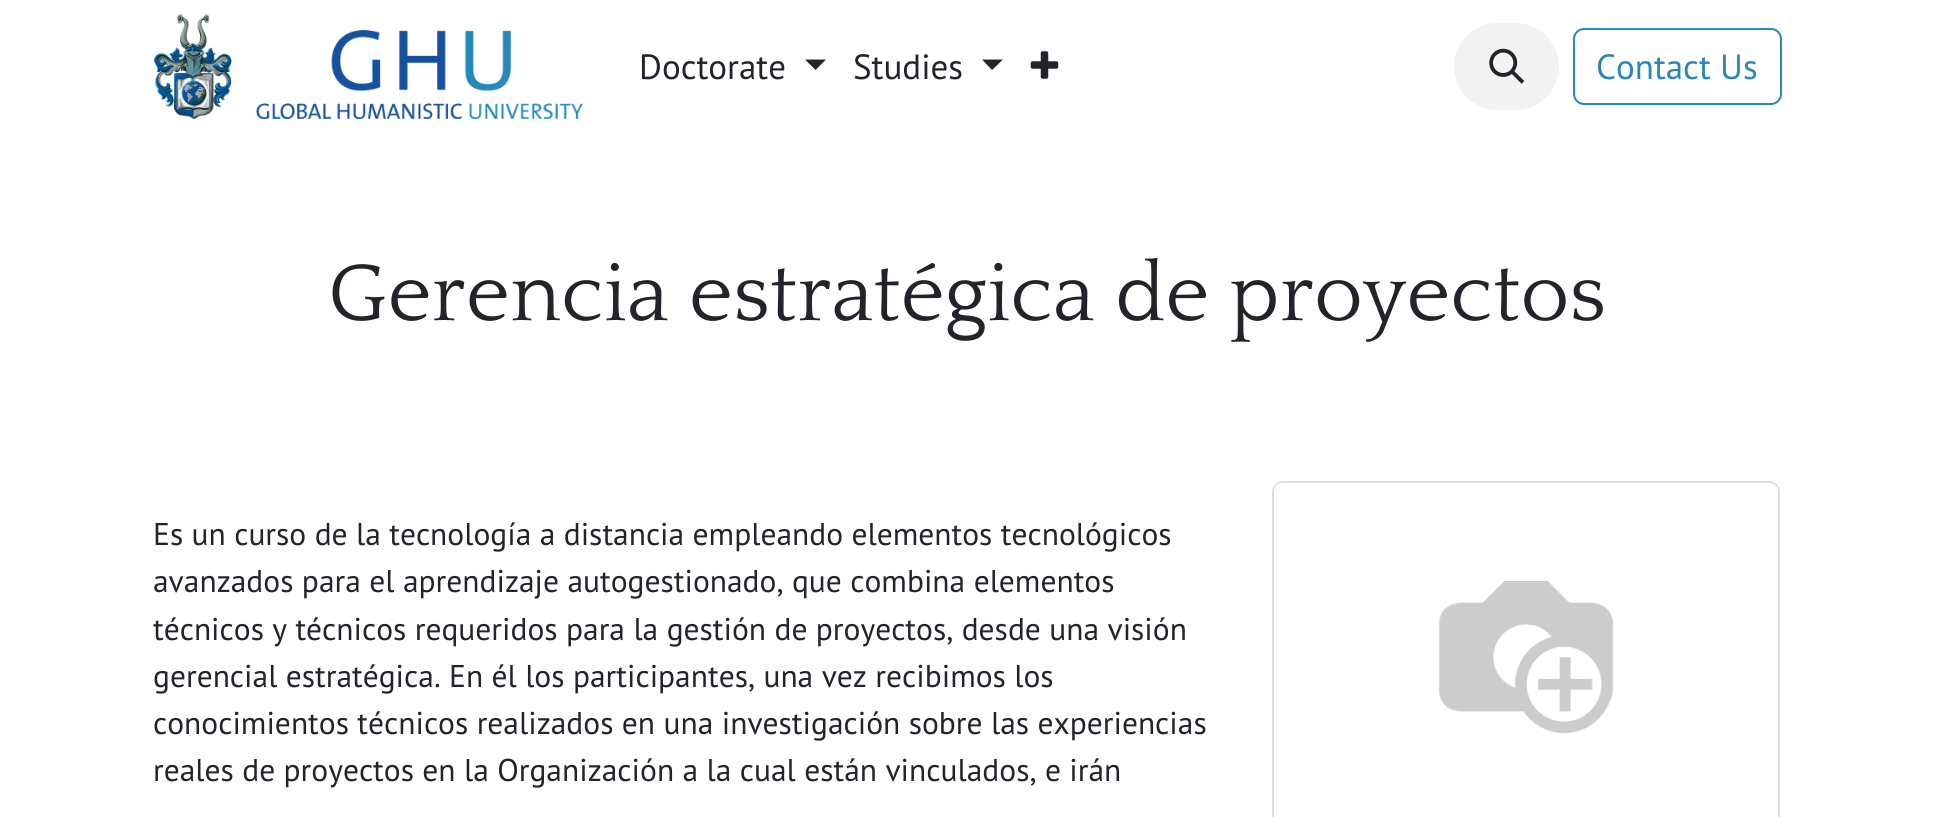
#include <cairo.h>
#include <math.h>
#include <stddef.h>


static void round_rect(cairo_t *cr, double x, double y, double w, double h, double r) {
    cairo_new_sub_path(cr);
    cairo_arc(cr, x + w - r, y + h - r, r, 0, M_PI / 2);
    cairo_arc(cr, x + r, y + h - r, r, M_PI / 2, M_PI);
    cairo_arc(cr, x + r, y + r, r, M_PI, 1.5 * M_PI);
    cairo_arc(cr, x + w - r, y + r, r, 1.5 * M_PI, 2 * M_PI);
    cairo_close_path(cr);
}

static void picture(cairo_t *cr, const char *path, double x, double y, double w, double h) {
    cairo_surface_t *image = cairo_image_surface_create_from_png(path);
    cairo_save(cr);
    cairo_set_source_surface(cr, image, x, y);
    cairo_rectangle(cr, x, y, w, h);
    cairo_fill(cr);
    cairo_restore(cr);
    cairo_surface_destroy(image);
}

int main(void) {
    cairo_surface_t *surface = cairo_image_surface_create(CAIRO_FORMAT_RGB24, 1933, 817);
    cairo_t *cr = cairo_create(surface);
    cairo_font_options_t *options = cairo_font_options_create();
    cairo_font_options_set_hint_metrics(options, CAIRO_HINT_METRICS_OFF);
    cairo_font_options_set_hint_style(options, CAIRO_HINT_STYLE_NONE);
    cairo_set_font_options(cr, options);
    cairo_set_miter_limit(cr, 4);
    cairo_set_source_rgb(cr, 1, 1, 1);
    cairo_paint(cr);
    picture(cr, "img1.png", 154, 14, 429, 105);
    cairo_select_font_face(cr, "PT Sans", CAIRO_FONT_SLANT_NORMAL, CAIRO_FONT_WEIGHT_NORMAL);
    cairo_set_font_size(cr, 35);
    cairo_set_source_rgb(cr, 0.129, 0.145, 0.161);
    cairo_move_to(cr, 639, 79);
    cairo_show_text(cr, "Doctorate");
    cairo_new_path(cr);
    cairo_move_to(cr, 805, 59.5);
    cairo_line_to(cr, 826, 59.5);
    cairo_line_to(cr, 815.5, 70);
    cairo_close_path(cr);
    cairo_fill(cr);
    cairo_move_to(cr, 853, 79);
    cairo_show_text(cr, "Studies");
    cairo_new_path(cr);
    cairo_move_to(cr, 982, 59.5);
    cairo_line_to(cr, 1003, 59.5);
    cairo_line_to(cr, 992, 70);
    cairo_close_path(cr);
    cairo_fill(cr);
    picture(cr, "img2.png", 1030, 51, 29, 28);
    cairo_set_source_rgb(cr, 0.949, 0.949, 0.949);
    round_rect(cr, 1454, 23, 105, 87, 43.5);
    cairo_fill(cr);
    picture(cr, "img3.png", 1489, 48, 36, 36);
    round_rect(cr, 1574, 29, 207, 75, 10);
    cairo_set_source_rgb(cr, 0.161, 0.529, 0.718);
    cairo_stroke(cr);
    cairo_move_to(cr, 1596, 79);
    cairo_show_text(cr, "Contact Us");
    cairo_select_font_face(cr, "Quattrocento", CAIRO_FONT_SLANT_NORMAL, CAIRO_FONT_WEIGHT_NORMAL);
    cairo_set_font_size(cr, 84);
    cairo_set_source_rgb(cr, 0.129, 0.145, 0.161);
    cairo_move_to(cr, 328, 320);
    cairo_show_text(cr, "Gerencia estratégica de proyectos");
    cairo_select_font_face(cr, "PT Sans", CAIRO_FONT_SLANT_NORMAL, CAIRO_FONT_WEIGHT_NORMAL);
    cairo_set_font_size(cr, 31.5);
    cairo_move_to(cr, 153, 545);
    cairo_show_text(cr, "Es un curso de la tecnología a distancia empleando elementos tecnológicos");
    cairo_move_to(cr, 153, 592);
    cairo_show_text(cr, "avanzados para el aprendizaje autogestionado, que combina elementos");
    cairo_move_to(cr, 153, 640);
    cairo_show_text(cr, "técnicos y técnicos requeridos para la gestión de proyectos, desde una visión");
    cairo_move_to(cr, 153, 687);
    cairo_show_text(cr, "gerencial estratégica. En él los participantes, una vez recibimos los");
    cairo_move_to(cr, 153, 734);
    cairo_show_text(cr, "conocimientos técnicos realizados en una investigación sobre las experiencias");
    cairo_move_to(cr, 153, 781);
    cairo_show_text(cr, "reales de proyectos en la Organización a la cual están vinculados, e irán");
    round_rect(cr, 1273, 482, 506, 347, 10);
    cairo_set_source_rgb(cr, 0.871, 0.871, 0.875);
    cairo_stroke(cr);
    cairo_set_source_rgba(cr, 1, 1, 1, 0.9);
    cairo_new_path(cr);
    cairo_move_to(cr, 1283, 483);
    cairo_line_to(cr, 1769, 483);
    cairo_curve_to(cr, 1774, 483, 1778, 487, 1778, 492);
    cairo_line_to(cr, 1778, 817);
    cairo_line_to(cr, 1274, 817);
    cairo_line_to(cr, 1274, 492);
    cairo_curve_to(cr, 1274, 487, 1278, 483, 1283, 483);
    cairo_close_path(cr);
    cairo_fill(cr);
    picture(cr, "img4.png", 1438, 581, 176, 153);
    cairo_surface_write_to_png(surface, "page.png");
    cairo_font_options_destroy(options);
    cairo_destroy(cr);
    cairo_surface_destroy(surface);
    return 0;
}
